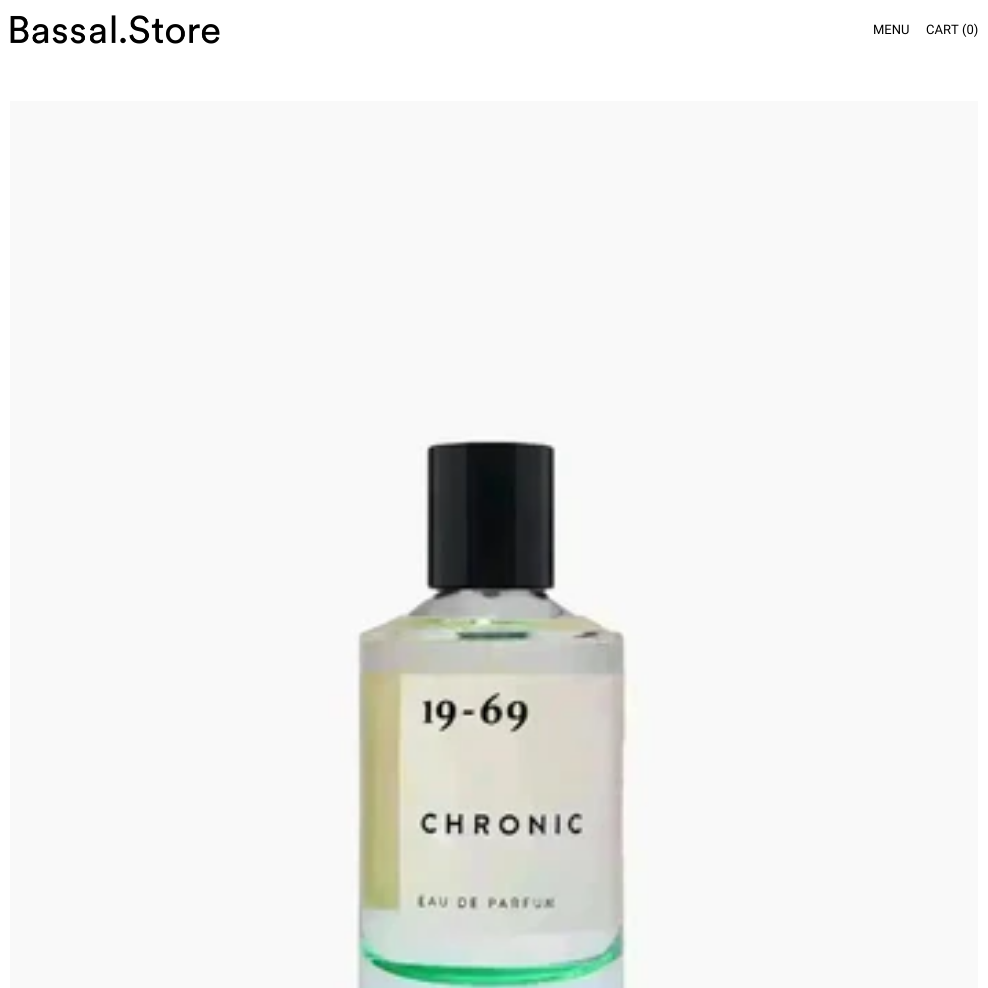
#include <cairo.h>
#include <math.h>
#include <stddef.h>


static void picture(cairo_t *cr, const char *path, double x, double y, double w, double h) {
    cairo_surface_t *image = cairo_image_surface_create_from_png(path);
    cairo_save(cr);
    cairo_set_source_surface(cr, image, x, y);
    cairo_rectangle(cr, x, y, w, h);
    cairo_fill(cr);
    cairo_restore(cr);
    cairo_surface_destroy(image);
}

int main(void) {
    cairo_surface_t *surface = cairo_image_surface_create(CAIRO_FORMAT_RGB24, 988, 988);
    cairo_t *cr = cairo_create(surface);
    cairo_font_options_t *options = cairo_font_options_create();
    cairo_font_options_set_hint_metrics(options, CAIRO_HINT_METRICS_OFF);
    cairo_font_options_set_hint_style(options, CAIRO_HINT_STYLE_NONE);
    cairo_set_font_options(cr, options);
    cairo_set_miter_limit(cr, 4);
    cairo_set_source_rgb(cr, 1, 1, 1);
    cairo_paint(cr);
    picture(cr, "img1.png", 10, 15, 210, 29);
    cairo_select_font_face(cr, "Roboto", CAIRO_FONT_SLANT_NORMAL, CAIRO_FONT_WEIGHT_NORMAL);
    cairo_set_font_size(cr, 13);
    cairo_set_source_rgb(cr, 0, 0, 0);
    cairo_move_to(cr, 873, 34);
    cairo_show_text(cr, "MENU");
    cairo_move_to(cr, 926, 34);
    cairo_show_text(cr, "CART (0)");
    picture(cr, "img2.png", 10, 101, 968, 887);
    cairo_surface_write_to_png(surface, "page.png");
    cairo_font_options_destroy(options);
    cairo_destroy(cr);
    cairo_surface_destroy(surface);
    return 0;
}
